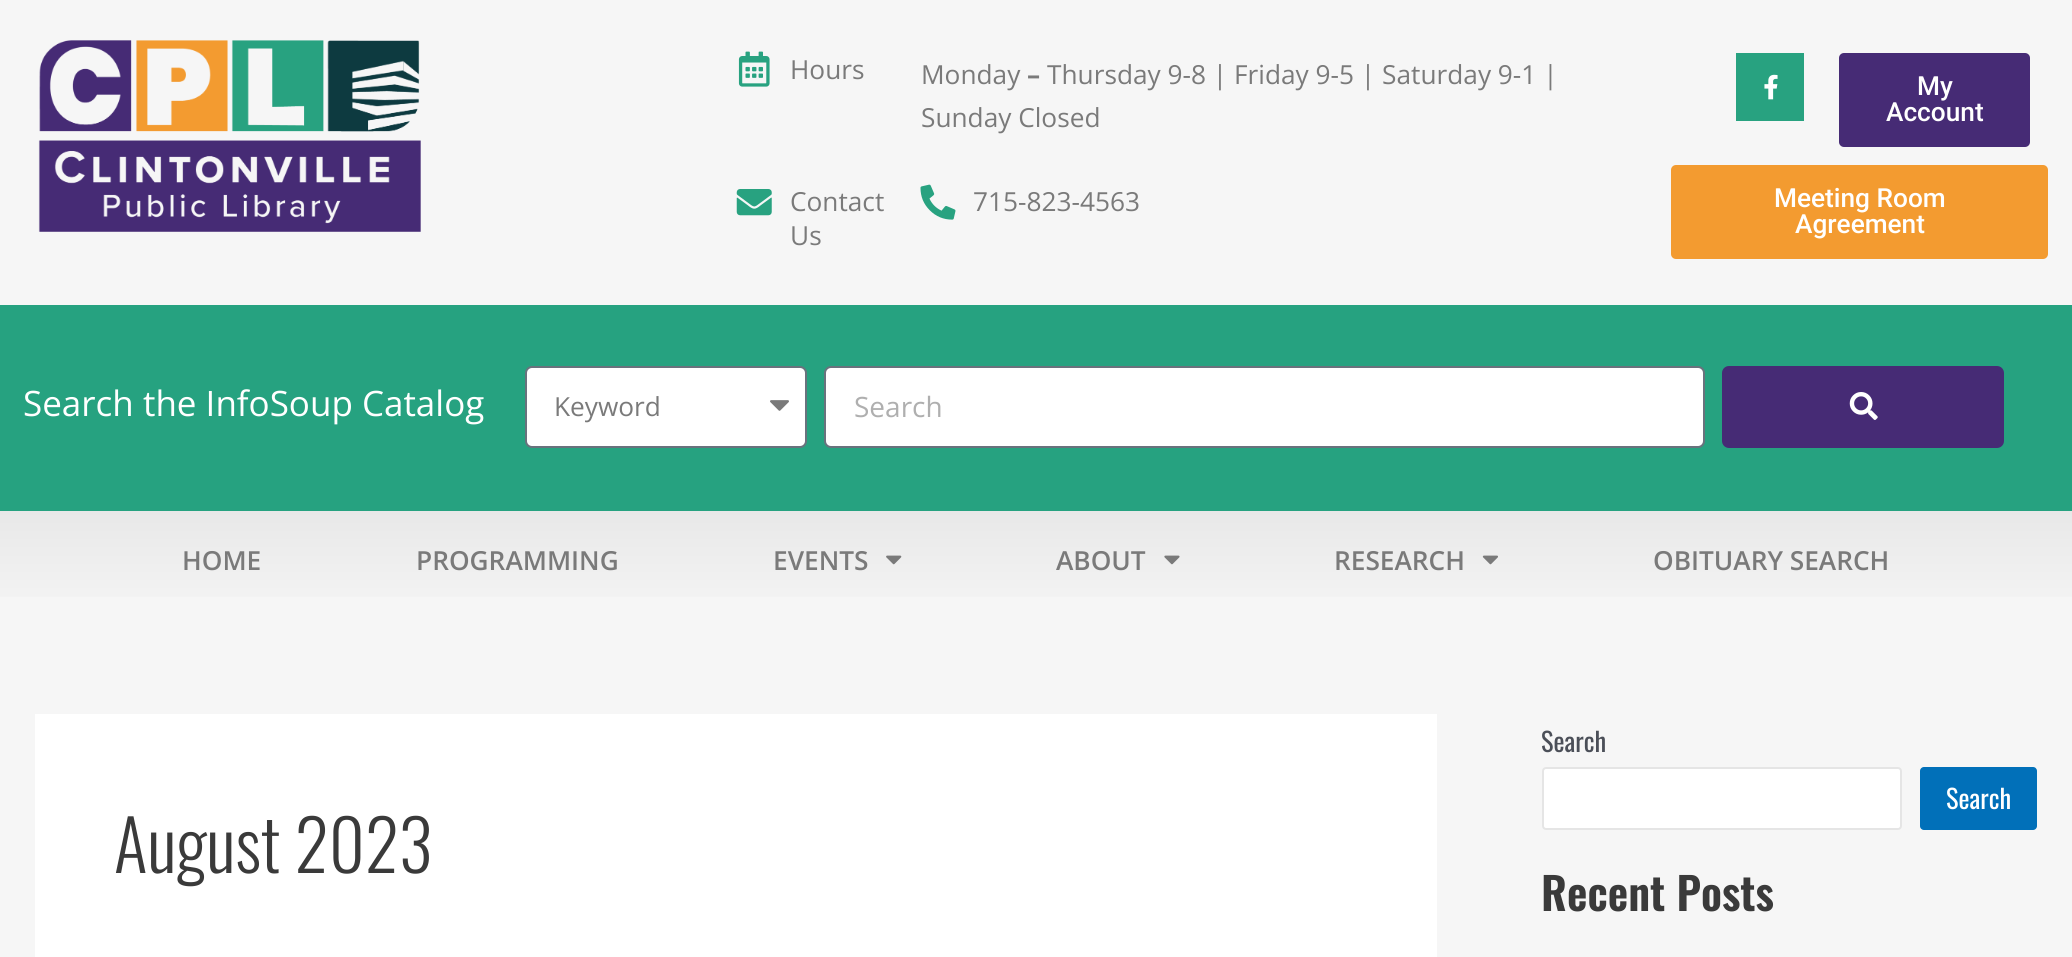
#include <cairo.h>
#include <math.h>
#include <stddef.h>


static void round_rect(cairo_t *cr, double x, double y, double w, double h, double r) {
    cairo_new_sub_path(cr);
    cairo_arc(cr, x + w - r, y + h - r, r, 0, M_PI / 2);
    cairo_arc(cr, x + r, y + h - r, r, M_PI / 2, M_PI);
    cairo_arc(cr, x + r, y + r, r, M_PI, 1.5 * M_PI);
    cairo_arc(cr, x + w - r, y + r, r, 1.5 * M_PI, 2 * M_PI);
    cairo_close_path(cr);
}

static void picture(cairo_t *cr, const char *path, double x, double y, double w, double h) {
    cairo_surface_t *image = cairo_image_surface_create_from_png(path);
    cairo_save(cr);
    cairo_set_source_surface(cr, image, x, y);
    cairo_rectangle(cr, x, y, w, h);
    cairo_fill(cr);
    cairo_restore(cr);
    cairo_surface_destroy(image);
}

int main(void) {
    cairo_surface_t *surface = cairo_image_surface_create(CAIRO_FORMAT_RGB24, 2072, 957);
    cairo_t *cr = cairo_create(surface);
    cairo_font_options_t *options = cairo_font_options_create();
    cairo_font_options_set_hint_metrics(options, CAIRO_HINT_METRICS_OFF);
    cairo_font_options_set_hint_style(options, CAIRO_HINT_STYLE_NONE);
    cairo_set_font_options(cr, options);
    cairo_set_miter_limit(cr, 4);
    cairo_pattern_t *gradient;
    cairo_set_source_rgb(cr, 0.961, 0.961, 0.961);
    cairo_paint(cr);
    picture(cr, "img1.png", 38, 40, 383, 192);
    picture(cr, "img2.png", 738, 51, 32, 36);
    cairo_select_font_face(cr, "Open Sans", CAIRO_FONT_SLANT_NORMAL, CAIRO_FONT_WEIGHT_NORMAL);
    cairo_set_font_size(cr, 26.25);
    cairo_set_source_rgb(cr, 0.478, 0.478, 0.478);
    cairo_move_to(cr, 790, 79);
    cairo_show_text(cr, "Hours");
    cairo_move_to(cr, 921, 84);
    cairo_show_text(cr, "Monday");
    cairo_select_font_face(cr, "Open Sans", CAIRO_FONT_SLANT_NORMAL, CAIRO_FONT_WEIGHT_BOLD);
    cairo_move_to(cr, 1027, 84);
    cairo_show_text(cr, "–");
    cairo_select_font_face(cr, "Open Sans", CAIRO_FONT_SLANT_NORMAL, CAIRO_FONT_WEIGHT_NORMAL);
    cairo_move_to(cr, 1047, 84);
    cairo_show_text(cr, "Thursday 9-8 | Friday 9-5 | Saturday 9-1 |");
    cairo_move_to(cr, 921, 127);
    cairo_show_text(cr, "Sunday Closed");
    picture(cr, "img3.png", 736, 189, 36, 27);
    cairo_move_to(cr, 790, 211);
    cairo_show_text(cr, "Contact");
    cairo_move_to(cr, 790, 245);
    cairo_show_text(cr, "Us");
    picture(cr, "img4.png", 920, 184, 36, 36);
    cairo_move_to(cr, 973, 211);
    cairo_show_text(cr, "715-823-4563");
    cairo_set_source_rgb(cr, 0.157, 0.635, 0.502);
    cairo_rectangle(cr, 1736, 53, 68, 68);
    cairo_fill(cr);
    picture(cr, "img5.png", 1764, 74, 14, 26);
    cairo_set_source_rgb(cr, 0.275, 0.169, 0.459);
    round_rect(cr, 1839, 53, 191, 94, 5);
    cairo_fill(cr);
    cairo_select_font_face(cr, "Roboto Medium", CAIRO_FONT_SLANT_NORMAL, CAIRO_FONT_WEIGHT_NORMAL);
    cairo_set_source_rgb(cr, 1, 1, 1);
    cairo_move_to(cr, 1917, 95);
    cairo_show_text(cr, "My");
    cairo_move_to(cr, 1886, 121);
    cairo_show_text(cr, "Account");
    cairo_set_source_rgb(cr, 0.953, 0.608, 0.188);
    round_rect(cr, 1671, 165, 377, 94, 5);
    cairo_fill(cr);
    cairo_set_source_rgb(cr, 1, 1, 1);
    cairo_move_to(cr, 1774, 207);
    cairo_show_text(cr, "Meeting Room");
    cairo_move_to(cr, 1795, 233);
    cairo_show_text(cr, "Agreement");
    cairo_set_source_rgb(cr, 0.149, 0.635, 0.502);
    cairo_rectangle(cr, 0, 305, 2072, 206);
    cairo_fill(cr);
    cairo_select_font_face(cr, "Open Sans", CAIRO_FONT_SLANT_NORMAL, CAIRO_FONT_WEIGHT_NORMAL);
    cairo_set_font_size(cr, 35);
    cairo_set_source_rgb(cr, 1, 1, 1);
    cairo_move_to(cr, 23, 416);
    cairo_show_text(cr, "Search the InfoSoup Catalog");
    round_rect(cr, 526, 367, 280, 80, 6);
    cairo_fill_preserve(cr);
    cairo_set_source_rgb(cr, 0.412, 0.447, 0.49);
    cairo_stroke(cr);
    cairo_set_font_size(cr, 26.25);
    cairo_set_source_rgb(cr, 0.478, 0.478, 0.478);
    cairo_move_to(cr, 554, 416);
    cairo_show_text(cr, "Keyword");
    picture(cr, "img6.png", 770, 400, 19, 11);
    cairo_set_source_rgb(cr, 1, 1, 1);
    round_rect(cr, 825, 367, 879, 80, 6);
    cairo_fill_preserve(cr);
    cairo_set_source_rgb(cr, 0.412, 0.447, 0.49);
    cairo_stroke(cr);
    cairo_set_font_size(cr, 28);
    cairo_set_source_rgb(cr, 0.686, 0.686, 0.686);
    cairo_move_to(cr, 854, 417);
    cairo_show_text(cr, "Search");
    cairo_set_source_rgb(cr, 0.275, 0.169, 0.459);
    round_rect(cr, 1722, 366, 282, 82, 7);
    cairo_fill(cr);
    picture(cr, "img7.png", 1849, 392, 29, 28);
    gradient = cairo_pattern_create_linear(1036, 511, 1036, 609);
    cairo_pattern_add_color_stop_rgba(gradient, 0, 0.91, 0.91, 0.91, 1);
    cairo_pattern_add_color_stop_rgba(gradient, 1, 0.957, 0.957, 0.957, 1);
    cairo_set_source(cr, gradient);
    cairo_pattern_destroy(gradient);
    cairo_rectangle(cr, 0, 511, 2072, 86);
    cairo_fill(cr);
    cairo_select_font_face(cr, "Open Sans SemiBold", CAIRO_FONT_SLANT_NORMAL, CAIRO_FONT_WEIGHT_NORMAL);
    cairo_set_font_size(cr, 26.25);
    cairo_set_source_rgb(cr, 0.478, 0.478, 0.478);
    cairo_move_to(cr, 182, 570);
    cairo_show_text(cr, "HOME");
    cairo_move_to(cr, 416, 570);
    cairo_show_text(cr, "PROGRAMMING");
    cairo_move_to(cr, 773, 570);
    cairo_show_text(cr, "EVENTS");
    picture(cr, "img8.png", 886, 555, 16, 10);
    cairo_move_to(cr, 1056, 570);
    cairo_show_text(cr, "ABOUT");
    picture(cr, "img9.png", 1164, 555, 16, 10);
    cairo_move_to(cr, 1334, 570);
    cairo_show_text(cr, "RESEARCH");
    picture(cr, "img10.png", 1482, 555, 16, 10);
    cairo_move_to(cr, 1653, 570);
    cairo_show_text(cr, "OBITUARY SEARCH");
    cairo_set_source_rgb(cr, 1, 1, 1);
    cairo_rectangle(cr, 35, 714, 1402, 243);
    cairo_fill(cr);
    cairo_select_font_face(cr, "Oswald Light", CAIRO_FONT_SLANT_NORMAL, CAIRO_FONT_WEIGHT_NORMAL);
    cairo_set_font_size(cr, 70);
    cairo_set_source_rgb(cr, 0.227, 0.227, 0.227);
    cairo_move_to(cr, 114, 873);
    cairo_show_text(cr, "August 2023");
    cairo_select_font_face(cr, "Oswald", CAIRO_FONT_SLANT_NORMAL, CAIRO_FONT_WEIGHT_NORMAL);
    cairo_set_font_size(cr, 26.25);
    cairo_set_source_rgb(cr, 0.294, 0.31, 0.345);
    cairo_move_to(cr, 1541, 752);
    cairo_show_text(cr, "Search");
    cairo_set_source_rgb(cr, 1, 1, 1);
    round_rect(cr, 1543, 768, 358, 61, 3);
    cairo_fill_preserve(cr);
    cairo_set_source_rgb(cr, 0.898, 0.898, 0.898);
    cairo_stroke(cr);
    cairo_set_source_rgb(cr, 0.004, 0.439, 0.725);
    round_rect(cr, 1920, 767, 117, 63, 4);
    cairo_fill(cr);
    cairo_set_source_rgb(cr, 1, 1, 1);
    cairo_move_to(cr, 1946, 809);
    cairo_show_text(cr, "Search");
    cairo_select_font_face(cr, "Oswald SemiBold", CAIRO_FONT_SLANT_NORMAL, CAIRO_FONT_WEIGHT_NORMAL);
    cairo_set_font_size(cr, 44.5);
    cairo_set_source_rgb(cr, 0.227, 0.227, 0.227);
    cairo_move_to(cr, 1541, 911);
    cairo_show_text(cr, "Recent Posts");
    cairo_surface_write_to_png(surface, "page.png");
    cairo_font_options_destroy(options);
    cairo_destroy(cr);
    cairo_surface_destroy(surface);
    return 0;
}
